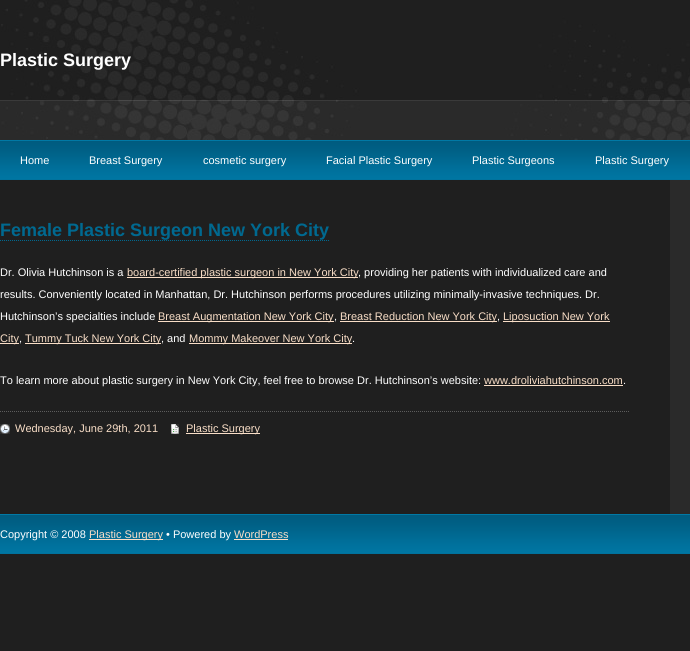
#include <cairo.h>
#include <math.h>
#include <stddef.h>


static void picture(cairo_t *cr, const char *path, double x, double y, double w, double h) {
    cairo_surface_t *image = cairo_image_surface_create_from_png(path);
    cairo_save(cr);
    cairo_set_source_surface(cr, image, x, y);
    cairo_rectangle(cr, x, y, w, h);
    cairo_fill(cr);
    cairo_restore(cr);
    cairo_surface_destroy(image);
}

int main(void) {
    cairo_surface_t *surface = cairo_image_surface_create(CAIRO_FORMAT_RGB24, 690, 651);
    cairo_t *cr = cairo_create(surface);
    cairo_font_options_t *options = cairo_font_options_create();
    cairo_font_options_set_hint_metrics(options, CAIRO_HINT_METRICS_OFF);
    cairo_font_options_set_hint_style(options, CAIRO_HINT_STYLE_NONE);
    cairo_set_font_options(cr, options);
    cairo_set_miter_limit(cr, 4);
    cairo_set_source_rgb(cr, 0.122, 0.122, 0.122);
    cairo_paint(cr);
    picture(cr, "img1.png", 0, 100, 690, 80);
    picture(cr, "img2.png", 1, 0, 689, 140);
    cairo_select_font_face(cr, "Liberation Sans", CAIRO_FONT_SLANT_NORMAL, CAIRO_FONT_WEIGHT_BOLD);
    cairo_set_font_size(cr, 18);
    cairo_set_source_rgb(cr, 1, 1, 1);
    cairo_move_to(cr, 0, 66);
    cairo_show_text(cr, "Plastic Surgery");
    cairo_select_font_face(cr, "Liberation Sans", CAIRO_FONT_SLANT_NORMAL, CAIRO_FONT_WEIGHT_NORMAL);
    cairo_set_font_size(cr, 11);
    cairo_move_to(cr, 20, 164);
    cairo_show_text(cr, "Home");
    cairo_move_to(cr, 89, 164);
    cairo_show_text(cr, "Breast Surgery");
    cairo_move_to(cr, 203, 164);
    cairo_show_text(cr, "cosmetic surgery");
    cairo_move_to(cr, 326, 164);
    cairo_show_text(cr, "Facial Plastic Surgery");
    cairo_move_to(cr, 472, 164);
    cairo_show_text(cr, "Plastic Surgeons");
    cairo_move_to(cr, 595, 164);
    cairo_show_text(cr, "Plastic Surgery");
    cairo_set_source_rgb(cr, 0.165, 0.165, 0.165);
    cairo_rectangle(cr, 670, 180, 20, 334);
    cairo_fill(cr);
    cairo_select_font_face(cr, "Liberation Sans", CAIRO_FONT_SLANT_NORMAL, CAIRO_FONT_WEIGHT_BOLD);
    cairo_set_font_size(cr, 18);
    cairo_set_source_rgb(cr, 0, 0.412, 0.565);
    cairo_move_to(cr, 0, 236);
    cairo_show_text(cr, "Female Plastic Surgeon New York City");
    cairo_new_path(cr);
    cairo_move_to(cr, 0, 240.5);
    cairo_line_to(cr, 329, 240.5);
    cairo_set_line_width(cr, 1);
    cairo_set_dash(cr, (double[]){1, 1}, 2, 0);
    cairo_stroke(cr);
    cairo_select_font_face(cr, "Liberation Sans", CAIRO_FONT_SLANT_NORMAL, CAIRO_FONT_WEIGHT_NORMAL);
    cairo_set_font_size(cr, 11);
    cairo_set_source_rgb(cr, 1, 1, 1);
    cairo_move_to(cr, 0, 276);
    cairo_show_text(cr, "Dr. Olivia Hutchinson is a");
    cairo_set_source_rgb(cr, 0.973, 0.871, 0.78);
    cairo_rectangle(cr, 127, 277, 231, 1);
    cairo_fill(cr);
    cairo_move_to(cr, 127, 276);
    cairo_show_text(cr, "board-certified plastic surgeon in New York City");
    cairo_set_source_rgb(cr, 1, 1, 1);
    cairo_move_to(cr, 358, 276);
    cairo_show_text(cr, ", providing her patients with individualized care and");
    cairo_move_to(cr, 0, 298);
    cairo_show_text(cr, "results. Conveniently located in Manhattan, Dr. Hutchinson performs procedures utilizing minimally-invasive techniques. Dr.");
    cairo_move_to(cr, 0, 320);
    cairo_show_text(cr, "Hutchinson’s specialties include");
    cairo_set_source_rgb(cr, 0.973, 0.871, 0.78);
    cairo_rectangle(cr, 158, 321, 176, 1);
    cairo_fill(cr);
    cairo_move_to(cr, 158, 320);
    cairo_show_text(cr, "Breast Augmentation New York City");
    cairo_set_source_rgb(cr, 1, 1, 1);
    cairo_move_to(cr, 334, 320);
    cairo_show_text(cr, ",");
    cairo_set_source_rgb(cr, 0.973, 0.871, 0.78);
    cairo_rectangle(cr, 340, 321, 157, 1);
    cairo_fill(cr);
    cairo_move_to(cr, 340, 320);
    cairo_show_text(cr, "Breast Reduction New York City");
    cairo_set_source_rgb(cr, 1, 1, 1);
    cairo_move_to(cr, 497, 320);
    cairo_show_text(cr, ",");
    cairo_set_source_rgb(cr, 0.973, 0.871, 0.78);
    cairo_rectangle(cr, 503, 321, 107, 1);
    cairo_fill(cr);
    cairo_move_to(cr, 503, 320);
    cairo_show_text(cr, "Liposuction New York");
    cairo_rectangle(cr, 0, 343, 19, 1);
    cairo_fill(cr);
    cairo_move_to(cr, 0, 342);
    cairo_show_text(cr, "City");
    cairo_set_source_rgb(cr, 1, 1, 1);
    cairo_move_to(cr, 19, 342);
    cairo_show_text(cr, ",");
    cairo_set_source_rgb(cr, 0.973, 0.871, 0.78);
    cairo_rectangle(cr, 25, 343, 136, 1);
    cairo_fill(cr);
    cairo_move_to(cr, 25, 342);
    cairo_show_text(cr, "Tummy Tuck New York City");
    cairo_set_source_rgb(cr, 1, 1, 1);
    cairo_move_to(cr, 161, 342);
    cairo_show_text(cr, ", and");
    cairo_set_source_rgb(cr, 0.973, 0.871, 0.78);
    cairo_rectangle(cr, 189, 343, 163, 1);
    cairo_fill(cr);
    cairo_move_to(cr, 189, 342);
    cairo_show_text(cr, "Mommy Makeover New York City");
    cairo_set_source_rgb(cr, 1, 1, 1);
    cairo_move_to(cr, 352, 342);
    cairo_show_text(cr, ".");
    cairo_move_to(cr, 0, 384);
    cairo_show_text(cr, "To learn more about plastic surgery in New York City, feel free to browse Dr. Hutchinson’s website:");
    cairo_set_source_rgb(cr, 0.973, 0.871, 0.78);
    cairo_move_to(cr, 484, 384);
    cairo_show_text(cr, "www.droliviahutchinson.com");
    cairo_rectangle(cr, 484, 385, 139, 1);
    cairo_fill(cr);
    cairo_set_source_rgb(cr, 1, 1, 1);
    cairo_move_to(cr, 623, 384);
    cairo_show_text(cr, ".");
    cairo_new_path(cr);
    cairo_move_to(cr, 0, 411.5);
    cairo_line_to(cr, 630, 411.5);
    cairo_set_source_rgb(cr, 0.365, 0.365, 0.365);
    cairo_stroke(cr);
    picture(cr, "img3.png", 0, 424, 10, 10);
    cairo_set_source_rgb(cr, 0.973, 0.871, 0.78);
    cairo_move_to(cr, 15, 432);
    cairo_show_text(cr, "Wednesday, June 29th, 2011");
    picture(cr, "img4.png", 171, 424, 8, 10);
    cairo_rectangle(cr, 186, 433, 74, 1);
    cairo_fill(cr);
    cairo_move_to(cr, 186, 432);
    cairo_show_text(cr, "Plastic Surgery");
    picture(cr, "img5.png", 0, 514, 690, 40);
    cairo_set_source_rgb(cr, 1, 1, 1);
    cairo_move_to(cr, 0, 538);
    cairo_show_text(cr, "Copyright © 2008");
    cairo_set_source_rgb(cr, 0.973, 0.871, 0.78);
    cairo_rectangle(cr, 89, 539, 74, 1);
    cairo_fill(cr);
    cairo_move_to(cr, 89, 538);
    cairo_show_text(cr, "Plastic Surgery");
    cairo_set_source_rgb(cr, 1, 1, 1);
    cairo_move_to(cr, 166, 538);
    cairo_show_text(cr, "• Powered by");
    cairo_set_source_rgb(cr, 0.973, 0.871, 0.78);
    cairo_move_to(cr, 234, 538);
    cairo_show_text(cr, "WordPress");
    cairo_rectangle(cr, 234, 539, 54, 1);
    cairo_fill(cr);
    cairo_surface_write_to_png(surface, "page.png");
    cairo_font_options_destroy(options);
    cairo_destroy(cr);
    cairo_surface_destroy(surface);
    return 0;
}
